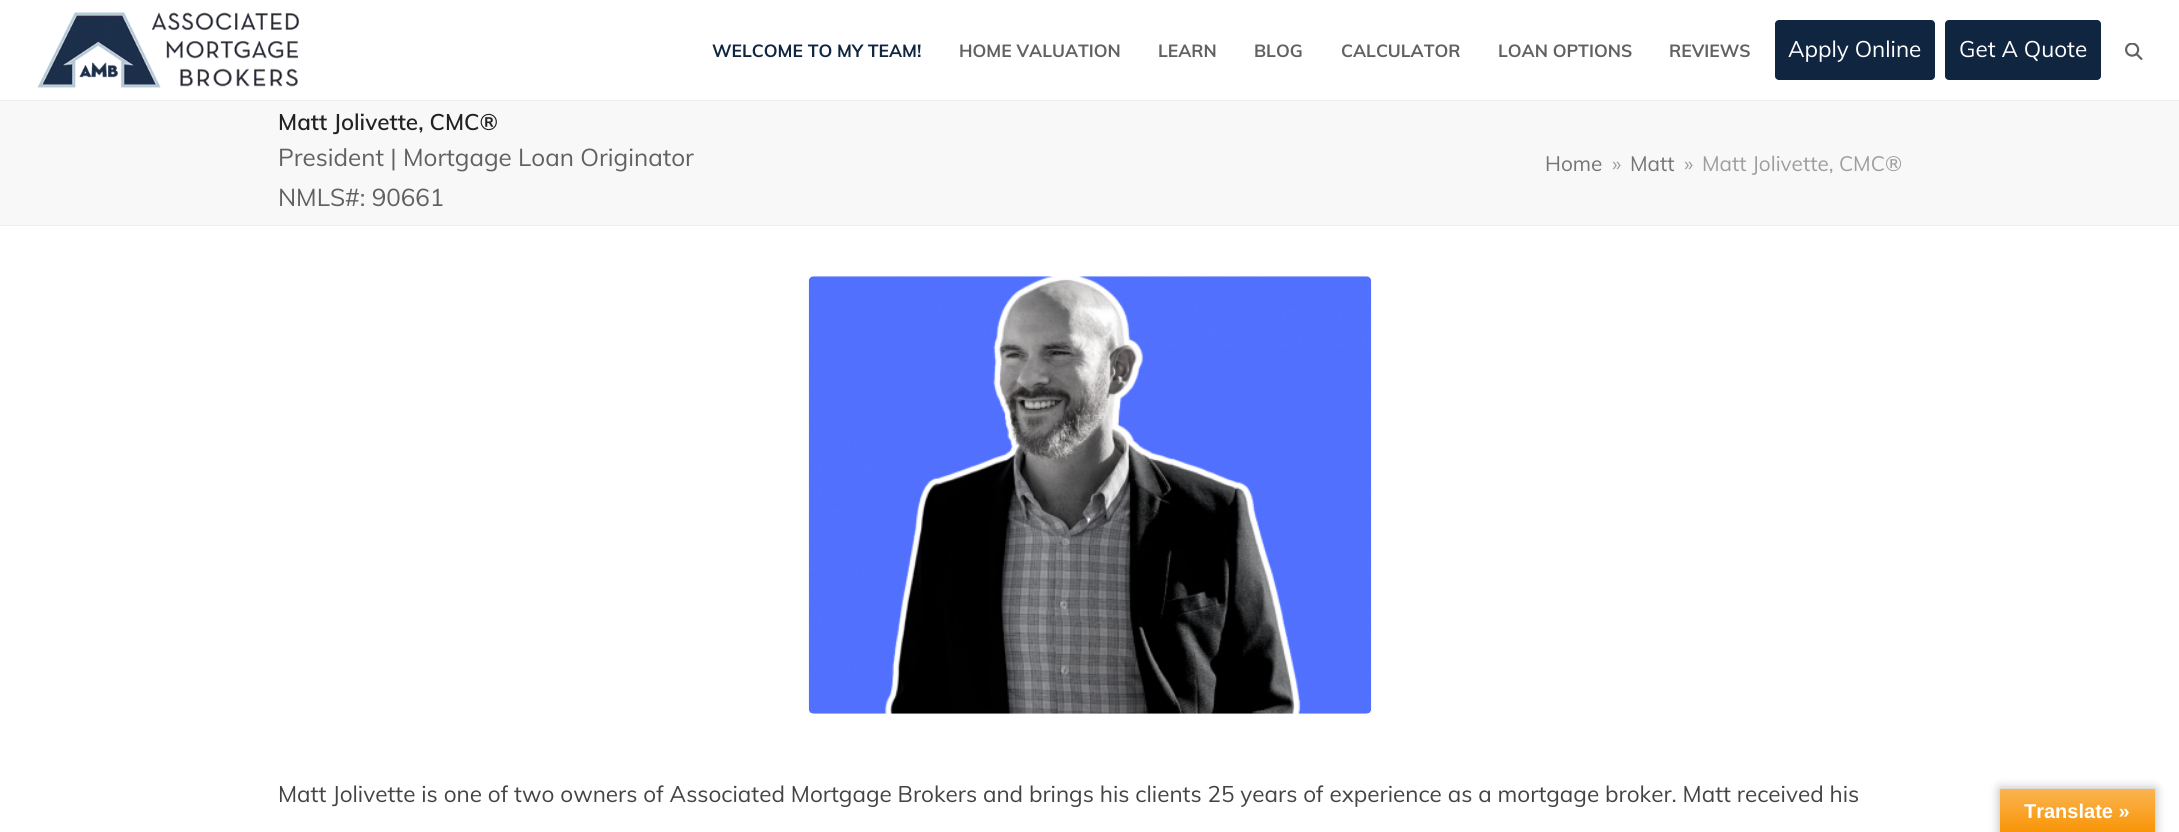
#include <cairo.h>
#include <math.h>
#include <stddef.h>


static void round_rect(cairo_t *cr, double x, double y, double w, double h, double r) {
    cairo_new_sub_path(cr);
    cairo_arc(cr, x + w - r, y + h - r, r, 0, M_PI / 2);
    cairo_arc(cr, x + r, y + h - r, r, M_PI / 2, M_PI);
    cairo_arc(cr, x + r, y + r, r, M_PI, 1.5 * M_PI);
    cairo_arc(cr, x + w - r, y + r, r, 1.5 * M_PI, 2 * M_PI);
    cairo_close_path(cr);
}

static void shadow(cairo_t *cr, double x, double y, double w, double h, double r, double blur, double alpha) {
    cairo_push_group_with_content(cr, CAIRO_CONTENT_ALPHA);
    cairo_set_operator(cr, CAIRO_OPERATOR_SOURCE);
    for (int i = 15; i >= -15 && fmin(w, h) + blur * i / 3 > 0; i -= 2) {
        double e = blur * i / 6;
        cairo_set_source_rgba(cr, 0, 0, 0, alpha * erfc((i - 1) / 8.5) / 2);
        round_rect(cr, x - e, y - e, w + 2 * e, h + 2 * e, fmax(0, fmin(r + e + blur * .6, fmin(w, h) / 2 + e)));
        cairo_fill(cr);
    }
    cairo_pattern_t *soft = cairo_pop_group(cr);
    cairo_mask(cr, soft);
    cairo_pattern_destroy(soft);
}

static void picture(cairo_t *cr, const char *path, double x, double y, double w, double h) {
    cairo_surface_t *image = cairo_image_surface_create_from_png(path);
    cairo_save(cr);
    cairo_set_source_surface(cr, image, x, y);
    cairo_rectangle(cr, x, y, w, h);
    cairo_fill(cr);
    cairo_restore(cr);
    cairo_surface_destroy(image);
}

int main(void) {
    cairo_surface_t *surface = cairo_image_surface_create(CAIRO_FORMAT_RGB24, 2179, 832);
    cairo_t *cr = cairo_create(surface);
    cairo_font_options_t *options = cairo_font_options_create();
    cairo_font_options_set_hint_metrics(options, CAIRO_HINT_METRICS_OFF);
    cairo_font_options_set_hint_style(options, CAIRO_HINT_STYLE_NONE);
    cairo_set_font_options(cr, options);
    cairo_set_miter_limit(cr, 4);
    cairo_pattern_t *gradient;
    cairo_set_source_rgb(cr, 1, 1, 1);
    cairo_paint(cr);
    picture(cr, "img1.png", 37, 12, 262, 76);
    cairo_select_font_face(cr, "Muli", CAIRO_FONT_SLANT_NORMAL, CAIRO_FONT_WEIGHT_BOLD);
    cairo_set_font_size(cr, 17.5);
    cairo_set_source_rgb(cr, 0.063, 0.145, 0.251);
    cairo_move_to(cr, 712, 57);
    cairo_show_text(cr, "WELCOME TO MY TEAM!");
    cairo_set_source_rgb(cr, 0.38, 0.38, 0.38);
    cairo_move_to(cr, 959, 57);
    cairo_show_text(cr, "HOME VALUATION");
    cairo_move_to(cr, 1158, 57);
    cairo_show_text(cr, "LEARN");
    cairo_move_to(cr, 1254, 57);
    cairo_show_text(cr, "BLOG");
    cairo_move_to(cr, 1341, 57);
    cairo_show_text(cr, "CALCULATOR");
    cairo_move_to(cr, 1498, 57);
    cairo_show_text(cr, "LOAN OPTIONS");
    cairo_move_to(cr, 1669, 57);
    cairo_show_text(cr, "REVIEWS");
    cairo_set_source_rgb(cr, 0.063, 0.145, 0.251);
    round_rect(cr, 1775, 20, 160, 60, 4);
    cairo_fill(cr);
    cairo_select_font_face(cr, "Muli", CAIRO_FONT_SLANT_NORMAL, CAIRO_FONT_WEIGHT_NORMAL);
    cairo_set_font_size(cr, 22.5);
    cairo_set_source_rgb(cr, 1, 1, 1);
    cairo_move_to(cr, 1788, 57);
    cairo_show_text(cr, "Apply Online");
    cairo_set_source_rgb(cr, 0.063, 0.145, 0.251);
    round_rect(cr, 1945, 20, 156, 60, 4);
    cairo_fill(cr);
    cairo_set_source_rgb(cr, 1, 1, 1);
    cairo_move_to(cr, 1959, 57);
    cairo_show_text(cr, "Get A Quote");
    picture(cr, "img2.png", 2125, 43, 18, 17);
    cairo_set_source_rgb(cr, 0.969, 0.969, 0.969);
    cairo_rectangle(cr, 0, 101, 2179, 124);
    cairo_fill(cr);
    cairo_set_source_rgb(cr, 0.933, 0.933, 0.933);
    cairo_rectangle(cr, 0, 100, 2179, 1);
    cairo_fill(cr);
    cairo_rectangle(cr, 0, 225, 2179, 1);
    cairo_fill(cr);
    cairo_select_font_face(cr, "Muli SemiBold", CAIRO_FONT_SLANT_NORMAL, CAIRO_FONT_WEIGHT_NORMAL);
    cairo_set_source_rgb(cr, 0.133, 0.133, 0.133);
    cairo_move_to(cr, 278, 130);
    cairo_show_text(cr, "Matt Jolivette, CMC®");
    cairo_select_font_face(cr, "Muli", CAIRO_FONT_SLANT_NORMAL, CAIRO_FONT_WEIGHT_NORMAL);
    cairo_set_font_size(cr, 24.25);
    cairo_set_source_rgb(cr, 0.38, 0.38, 0.38);
    cairo_move_to(cr, 278, 166);
    cairo_show_text(cr, "President | Mortgage Loan Originator");
    cairo_move_to(cr, 278, 206);
    cairo_show_text(cr, "NMLS#: 90661");
    cairo_set_font_size(cr, 20.75);
    cairo_set_source_rgb(cr, 0.459, 0.459, 0.459);
    cairo_move_to(cr, 1545, 171);
    cairo_show_text(cr, "Home");
    cairo_set_source_rgb(cr, 0.62, 0.62, 0.62);
    cairo_move_to(cr, 1612, 171);
    cairo_show_text(cr, "»");
    cairo_set_source_rgb(cr, 0.459, 0.459, 0.459);
    cairo_move_to(cr, 1630, 171);
    cairo_show_text(cr, "Matt");
    cairo_set_source_rgb(cr, 0.62, 0.62, 0.62);
    cairo_move_to(cr, 1684, 171);
    cairo_show_text(cr, "»");
    cairo_move_to(cr, 1702, 171);
    cairo_show_text(cr, "Matt Jolivette, CMC®");
    picture(cr, "img3.png", 808, 276, 564, 438);
    cairo_set_font_size(cr, 22.5);
    cairo_set_source_rgb(cr, 0.267, 0.267, 0.267);
    cairo_move_to(cr, 278, 802);
    cairo_show_text(cr, "Matt Jolivette is one of two owners of Associated Mortgage Brokers and brings his clients 25 years of experience as a mortgage broker. Matt received his");
    cairo_set_source_rgb(cr, 0, 0, 0);
    shadow(cr, 2000, 789, 155, 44, 0, 5.5, 0.3);
    gradient = cairo_pattern_create_linear(2078, 789, 2078, 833);
    cairo_pattern_add_color_stop_rgba(gradient, 0, 0.984, 0.706, 0.314, 1);
    cairo_pattern_add_color_stop_rgba(gradient, 1, 0.973, 0.58, 0.024, 1);
    cairo_set_source(cr, gradient);
    cairo_pattern_destroy(gradient);
    cairo_rectangle(cr, 2000, 789, 155, 43);
    cairo_fill(cr);
    cairo_select_font_face(cr, "Liberation Sans", CAIRO_FONT_SLANT_NORMAL, CAIRO_FONT_WEIGHT_BOLD);
    cairo_set_font_size(cr, 20);
    cairo_set_source_rgb(cr, 1, 1, 1);
    cairo_move_to(cr, 2024, 818);
    cairo_show_text(cr, "Translate »");
    cairo_surface_write_to_png(surface, "page.png");
    cairo_font_options_destroy(options);
    cairo_destroy(cr);
    cairo_surface_destroy(surface);
    return 0;
}
